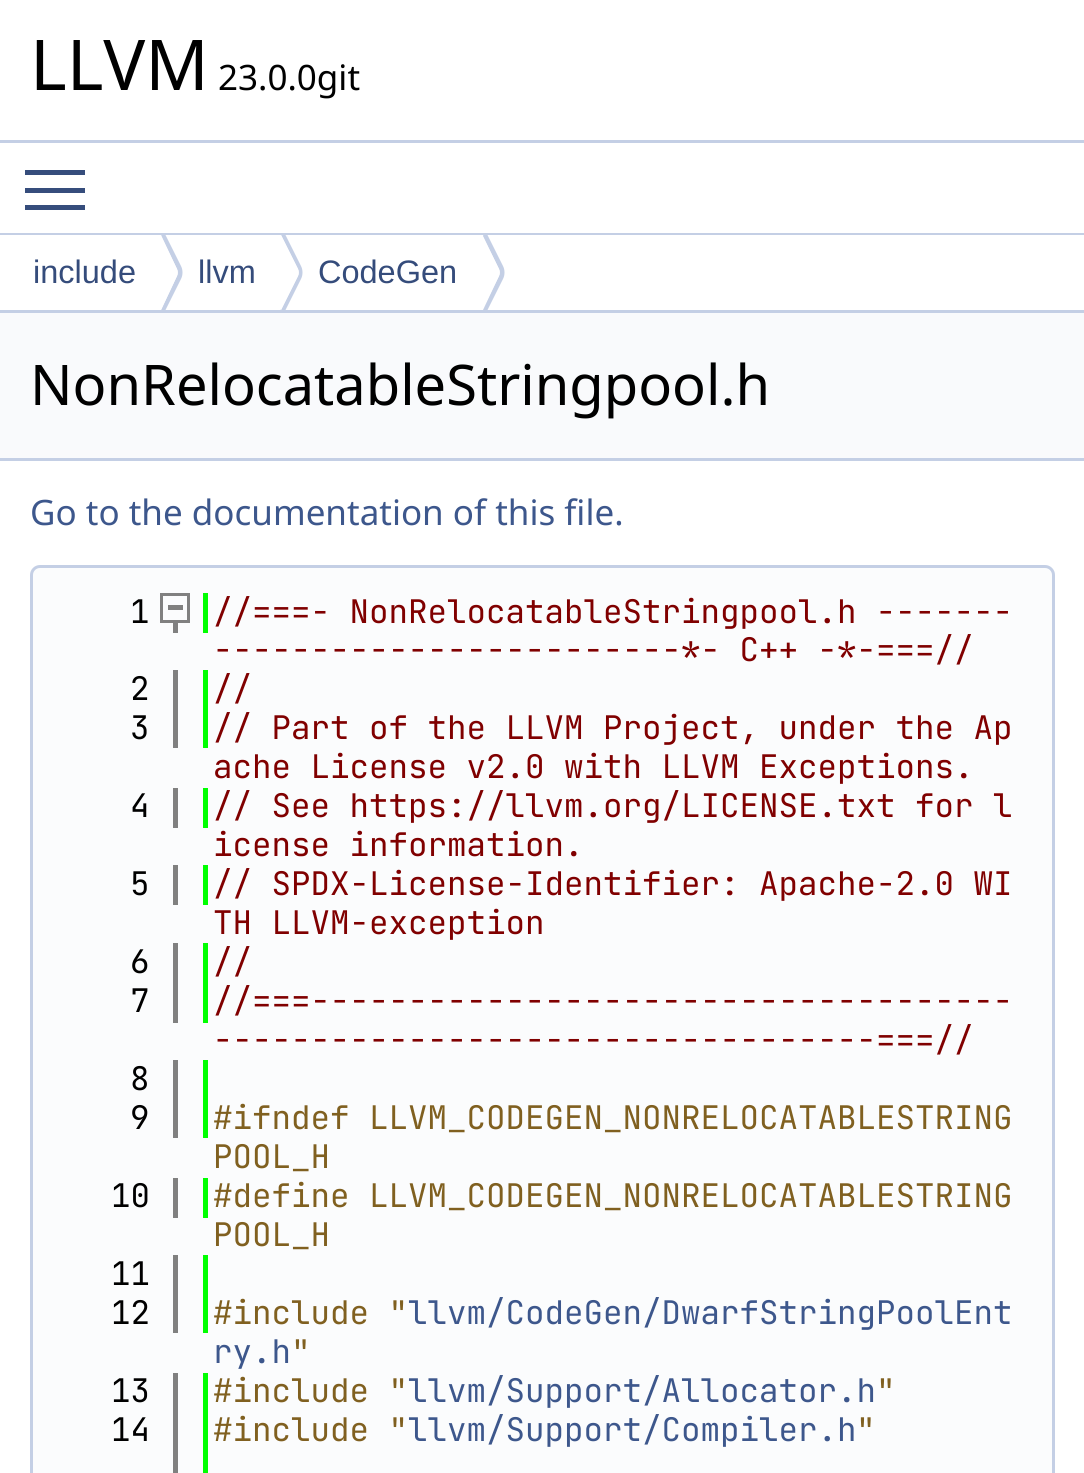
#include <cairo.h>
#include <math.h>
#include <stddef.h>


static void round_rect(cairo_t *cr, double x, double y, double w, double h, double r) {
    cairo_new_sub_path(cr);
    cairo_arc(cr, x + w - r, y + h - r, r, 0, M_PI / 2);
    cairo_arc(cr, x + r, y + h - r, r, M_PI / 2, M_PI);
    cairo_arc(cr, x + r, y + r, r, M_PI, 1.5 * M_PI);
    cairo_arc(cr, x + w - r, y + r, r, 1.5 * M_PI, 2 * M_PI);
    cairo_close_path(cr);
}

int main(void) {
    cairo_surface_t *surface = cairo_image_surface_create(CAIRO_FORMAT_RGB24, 1084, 1473);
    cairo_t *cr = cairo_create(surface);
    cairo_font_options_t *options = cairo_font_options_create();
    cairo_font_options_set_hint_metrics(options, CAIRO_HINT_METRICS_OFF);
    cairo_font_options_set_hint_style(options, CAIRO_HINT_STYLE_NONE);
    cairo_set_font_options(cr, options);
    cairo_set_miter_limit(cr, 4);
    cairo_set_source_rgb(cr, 1, 1, 1);
    cairo_paint(cr);
    cairo_set_source_rgb(cr, 0.769, 0.812, 0.898);
    cairo_rectangle(cr, 0, 140, 1084, 3);
    cairo_fill(cr);
    cairo_select_font_face(cr, "Noto Sans", CAIRO_FONT_SLANT_NORMAL, CAIRO_FONT_WEIGHT_NORMAL);
    cairo_set_font_size(cr, 70);
    cairo_set_source_rgb(cr, 0, 0, 0);
    cairo_move_to(cr, 30, 90);
    cairo_show_text(cr, "LLVM");
    cairo_set_font_size(cr, 35);
    cairo_move_to(cr, 218, 90);
    cairo_show_text(cr, "23.0.0git");
    cairo_set_source_rgb(cr, 0.212, 0.302, 0.486);
    cairo_rectangle(cr, 25, 188, 60, 5);
    cairo_fill(cr);
    cairo_rectangle(cr, 25, 170, 60, 5);
    cairo_fill(cr);
    cairo_rectangle(cr, 25, 205, 60, 5);
    cairo_fill(cr);
    cairo_set_source_rgb(cr, 0.769, 0.812, 0.898);
    cairo_rectangle(cr, 0, 233, 1084, 2);
    cairo_fill(cr);
    cairo_rectangle(cr, 0, 310, 1084, 3);
    cairo_fill(cr);
    cairo_select_font_face(cr, "Liberation Sans", CAIRO_FONT_SLANT_NORMAL, CAIRO_FONT_WEIGHT_NORMAL);
    cairo_set_font_size(cr, 32.5);
    cairo_set_source_rgb(cr, 0.208, 0.298, 0.482);
    cairo_move_to(cr, 33, 283);
    cairo_show_text(cr, "include");
    cairo_save(cr);
    cairo_rectangle(cr, 0, 235, 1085, 75);
    cairo_clip(cr);
    cairo_set_source_rgb(cr, 0.769, 0.812, 0.898);
    cairo_new_path(cr);
    cairo_move_to(cr, 163, 230);
    cairo_line_to(cr, 161, 236);
    cairo_line_to(cr, 177, 269);
    cairo_curve_to(cr, 178, 271, 178, 274, 177, 276);
    cairo_line_to(cr, 161, 310);
    cairo_line_to(cr, 163, 315);
    cairo_line_to(cr, 181, 279);
    cairo_curve_to(cr, 183, 275, 183, 270, 181, 266);
    cairo_close_path(cr);
    cairo_fill(cr);
    cairo_restore(cr);
    cairo_set_source_rgb(cr, 1, 1, 1);
    cairo_new_path(cr);
    cairo_move_to(cr, 161, 235);
    cairo_line_to(cr, 177, 269);
    cairo_curve_to(cr, 178, 271, 178, 274, 177, 276);
    cairo_line_to(cr, 161, 310);
    cairo_curve_to(cr, 150, 289, 150, 256, 161, 235);
    cairo_close_path(cr);
    cairo_fill(cr);
    cairo_set_source_rgb(cr, 0.208, 0.298, 0.482);
    cairo_move_to(cr, 198, 283);
    cairo_show_text(cr, "llvm");
    cairo_save(cr);
    cairo_rectangle(cr, 0, 235, 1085, 75);
    cairo_clip(cr);
    cairo_set_source_rgb(cr, 0.769, 0.812, 0.898);
    cairo_new_path(cr);
    cairo_move_to(cr, 283, 230);
    cairo_line_to(cr, 281, 235);
    cairo_line_to(cr, 298, 269);
    cairo_curve_to(cr, 299, 271, 299, 274, 298, 276);
    cairo_line_to(cr, 281, 310);
    cairo_line_to(cr, 280, 309);
    cairo_line_to(cr, 283, 315);
    cairo_line_to(cr, 301, 279);
    cairo_curve_to(cr, 303, 275, 303, 270, 301, 266);
    cairo_close_path(cr);
    cairo_fill(cr);
    cairo_restore(cr);
    cairo_set_source_rgb(cr, 1, 1, 1);
    cairo_new_path(cr);
    cairo_move_to(cr, 281, 235);
    cairo_line_to(cr, 298, 269);
    cairo_curve_to(cr, 299, 271, 299, 274, 298, 276);
    cairo_line_to(cr, 281, 310);
    cairo_curve_to(cr, 270, 289, 270, 256, 281, 235);
    cairo_close_path(cr);
    cairo_fill(cr);
    cairo_set_source_rgb(cr, 0.208, 0.298, 0.482);
    cairo_move_to(cr, 318, 283);
    cairo_show_text(cr, "CodeGen");
    cairo_save(cr);
    cairo_rectangle(cr, 0, 235, 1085, 75);
    cairo_clip(cr);
    cairo_set_source_rgb(cr, 0.769, 0.812, 0.898);
    cairo_new_path(cr);
    cairo_move_to(cr, 485, 230);
    cairo_line_to(cr, 483, 236);
    cairo_line_to(cr, 499, 269);
    cairo_curve_to(cr, 500, 271, 500, 274, 499, 276);
    cairo_line_to(cr, 483, 310);
    cairo_line_to(cr, 485, 315);
    cairo_line_to(cr, 503, 279);
    cairo_curve_to(cr, 505, 275, 505, 270, 503, 266);
    cairo_close_path(cr);
    cairo_fill(cr);
    cairo_restore(cr);
    cairo_set_source_rgb(cr, 1, 1, 1);
    cairo_new_path(cr);
    cairo_move_to(cr, 482, 235);
    cairo_line_to(cr, 499, 269);
    cairo_curve_to(cr, 500, 271, 500, 274, 499, 276);
    cairo_line_to(cr, 482, 310);
    cairo_curve_to(cr, 472, 289, 472, 256, 482, 235);
    cairo_close_path(cr);
    cairo_fill(cr);
    cairo_set_source_rgb(cr, 0.976, 0.98, 0.988);
    cairo_rectangle(cr, 0, 313, 1084, 145);
    cairo_fill(cr);
    cairo_set_source_rgb(cr, 0.769, 0.812, 0.898);
    cairo_rectangle(cr, 0, 458, 1084, 3);
    cairo_fill(cr);
    cairo_select_font_face(cr, "Noto Sans", CAIRO_FONT_SLANT_NORMAL, CAIRO_FONT_WEIGHT_NORMAL);
    cairo_set_font_size(cr, 56);
    cairo_set_source_rgb(cr, 0, 0, 0);
    cairo_move_to(cr, 30, 405);
    cairo_show_text(cr, "NonRelocatableStringpool.h");
    cairo_set_font_size(cr, 35);
    cairo_set_source_rgb(cr, 0.239, 0.341, 0.549);
    cairo_move_to(cr, 30, 525);
    cairo_show_text(cr, "Go to the documentation of this file.");
    cairo_set_source_rgb(cr, 0.984, 0.988, 0.992);
    round_rect(cr, 31.5, 566.5, 1022, 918, 8.5);
    cairo_fill_preserve(cr);
    cairo_set_source_rgb(cr, 0.769, 0.812, 0.898);
    cairo_set_line_width(cr, 3);
    cairo_stroke(cr);
    cairo_set_source_rgb(cr, 0.502, 0.502, 0.502);
    cairo_rectangle(cr, 173, 623, 5, 10);
    cairo_fill(cr);
    cairo_set_source_rgb(cr, 0, 1, 0);
    cairo_rectangle(cr, 203, 593, 5, 40);
    cairo_fill(cr);
    cairo_select_font_face(cr, "JetBrains Mono", CAIRO_FONT_SLANT_NORMAL, CAIRO_FONT_WEIGHT_NORMAL);
    cairo_set_font_size(cr, 32.5);
    cairo_set_source_rgb(cr, 0, 0, 0);
    cairo_move_to(cr, 130, 623);
    cairo_show_text(cr, "1");
    cairo_rectangle(cr, 161.5, 594.5, 27, 27);
    cairo_set_source_rgb(cr, 0.502, 0.502, 0.502);
    cairo_stroke(cr);
    cairo_rectangle(cr, 168, 605, 15, 5);
    cairo_fill(cr);
    cairo_set_source_rgb(cr, 0.502, 0, 0);
    cairo_move_to(cr, 213, 623);
    cairo_show_text(cr, "//===- NonRelocatableStringpool.h -------");
    cairo_move_to(cr, 213, 661);
    cairo_show_text(cr, "------------------------*- C++ -*-===//");
    cairo_set_source_rgb(cr, 0.502, 0.502, 0.502);
    cairo_rectangle(cr, 173, 670, 5, 78);
    cairo_fill(cr);
    cairo_set_source_rgb(cr, 0, 1, 0);
    cairo_rectangle(cr, 203, 670, 5, 78);
    cairo_fill(cr);
    cairo_set_source_rgb(cr, 0, 0, 0);
    cairo_move_to(cr, 130, 700);
    cairo_show_text(cr, "2");
    cairo_set_source_rgb(cr, 0.502, 0, 0);
    cairo_move_to(cr, 213, 700);
    cairo_show_text(cr, "//");
    cairo_set_source_rgb(cr, 0, 0, 0);
    cairo_move_to(cr, 130, 739);
    cairo_show_text(cr, "3");
    cairo_set_source_rgb(cr, 0.502, 0, 0);
    cairo_move_to(cr, 213, 739);
    cairo_show_text(cr, "// Part of the LLVM Project, under the Ap");
    cairo_move_to(cr, 213, 778);
    cairo_show_text(cr, "ache License v2.0 with LLVM Exceptions.");
    cairo_set_source_rgb(cr, 0.502, 0.502, 0.502);
    cairo_rectangle(cr, 173, 788, 5, 40);
    cairo_fill(cr);
    cairo_set_source_rgb(cr, 0, 1, 0);
    cairo_rectangle(cr, 203, 788, 5, 40);
    cairo_fill(cr);
    cairo_set_source_rgb(cr, 0, 0, 0);
    cairo_move_to(cr, 130, 817);
    cairo_show_text(cr, "4");
    cairo_set_source_rgb(cr, 0.502, 0, 0);
    cairo_move_to(cr, 213, 817);
    cairo_show_text(cr, "// See https://llvm.org/LICENSE.txt for l");
    cairo_move_to(cr, 213, 856);
    cairo_show_text(cr, "icense information.");
    cairo_set_source_rgb(cr, 0.502, 0.502, 0.502);
    cairo_rectangle(cr, 173, 865, 5, 40);
    cairo_fill(cr);
    cairo_set_source_rgb(cr, 0, 1, 0);
    cairo_rectangle(cr, 203, 865, 5, 40);
    cairo_fill(cr);
    cairo_set_source_rgb(cr, 0, 0, 0);
    cairo_move_to(cr, 130, 895);
    cairo_show_text(cr, "5");
    cairo_set_source_rgb(cr, 0.502, 0, 0);
    cairo_move_to(cr, 213, 895);
    cairo_show_text(cr, "// SPDX-License-Identifier: Apache-2.0 WI");
    cairo_move_to(cr, 213, 934);
    cairo_show_text(cr, "TH LLVM-exception");
    cairo_set_source_rgb(cr, 0.502, 0.502, 0.502);
    cairo_rectangle(cr, 173, 943, 5, 80);
    cairo_fill(cr);
    cairo_set_source_rgb(cr, 0, 1, 0);
    cairo_rectangle(cr, 203, 943, 5, 80);
    cairo_fill(cr);
    cairo_set_source_rgb(cr, 0, 0, 0);
    cairo_move_to(cr, 130, 973);
    cairo_show_text(cr, "6");
    cairo_set_source_rgb(cr, 0.502, 0, 0);
    cairo_move_to(cr, 213, 973);
    cairo_show_text(cr, "//");
    cairo_set_source_rgb(cr, 0, 0, 0);
    cairo_move_to(cr, 130, 1012);
    cairo_show_text(cr, "7");
    cairo_set_source_rgb(cr, 0.502, 0, 0);
    cairo_move_to(cr, 213, 1012);
    cairo_show_text(cr, "//===------------------------------------");
    cairo_move_to(cr, 213, 1051);
    cairo_show_text(cr, "----------------------------------===//");
    cairo_set_source_rgb(cr, 0.502, 0.502, 0.502);
    cairo_rectangle(cr, 173, 1060, 5, 78);
    cairo_fill(cr);
    cairo_set_source_rgb(cr, 0, 1, 0);
    cairo_rectangle(cr, 203, 1060, 5, 78);
    cairo_fill(cr);
    cairo_set_source_rgb(cr, 0, 0, 0);
    cairo_move_to(cr, 130, 1090);
    cairo_show_text(cr, "8");
    cairo_move_to(cr, 130, 1129);
    cairo_show_text(cr, "9");
    cairo_set_source_rgb(cr, 0.502, 0.376, 0.125);
    cairo_move_to(cr, 213, 1129);
    cairo_show_text(cr, "#ifndef LLVM_CODEGEN_NONRELOCATABLESTRING");
    cairo_move_to(cr, 213, 1168);
    cairo_show_text(cr, "POOL_H");
    cairo_set_source_rgb(cr, 0.502, 0.502, 0.502);
    cairo_rectangle(cr, 173, 1178, 5, 40);
    cairo_fill(cr);
    cairo_set_source_rgb(cr, 0, 1, 0);
    cairo_rectangle(cr, 203, 1178, 5, 40);
    cairo_fill(cr);
    cairo_set_source_rgb(cr, 0, 0, 0);
    cairo_move_to(cr, 111, 1207);
    cairo_show_text(cr, "10");
    cairo_set_source_rgb(cr, 0.502, 0.376, 0.125);
    cairo_move_to(cr, 213, 1207);
    cairo_show_text(cr, "#define LLVM_CODEGEN_NONRELOCATABLESTRING");
    cairo_move_to(cr, 213, 1246);
    cairo_show_text(cr, "POOL_H");
    cairo_set_source_rgb(cr, 0.502, 0.502, 0.502);
    cairo_rectangle(cr, 173, 1255, 5, 78);
    cairo_fill(cr);
    cairo_set_source_rgb(cr, 0, 1, 0);
    cairo_rectangle(cr, 203, 1255, 5, 78);
    cairo_fill(cr);
    cairo_set_source_rgb(cr, 0, 0, 0);
    cairo_move_to(cr, 111, 1285);
    cairo_show_text(cr, "11");
    cairo_move_to(cr, 111, 1324);
    cairo_show_text(cr, "12");
    cairo_set_source_rgb(cr, 0.502, 0.376, 0.125);
    cairo_move_to(cr, 213, 1324);
    cairo_show_text(cr, "#include \"");
    cairo_set_source_rgb(cr, 0.239, 0.341, 0.549);
    cairo_move_to(cr, 408, 1324);
    cairo_show_text(cr, "llvm/CodeGen/DwarfStringPoolEnt");
    cairo_move_to(cr, 213, 1363);
    cairo_show_text(cr, "ry.h");
    cairo_set_source_rgb(cr, 0.502, 0.376, 0.125);
    cairo_move_to(cr, 291, 1363);
    cairo_show_text(cr, "\"");
    cairo_set_source_rgb(cr, 0.502, 0.502, 0.502);
    cairo_rectangle(cr, 173, 1373, 5, 100);
    cairo_fill(cr);
    cairo_set_source_rgb(cr, 0, 1, 0);
    cairo_rectangle(cr, 203, 1373, 5, 100);
    cairo_fill(cr);
    cairo_set_source_rgb(cr, 0, 0, 0);
    cairo_move_to(cr, 111, 1402);
    cairo_show_text(cr, "13");
    cairo_set_source_rgb(cr, 0.502, 0.376, 0.125);
    cairo_move_to(cr, 213, 1402);
    cairo_show_text(cr, "#include \"");
    cairo_set_source_rgb(cr, 0.239, 0.341, 0.549);
    cairo_move_to(cr, 408, 1402);
    cairo_show_text(cr, "llvm/Support/Allocator.h");
    cairo_set_source_rgb(cr, 0.502, 0.376, 0.125);
    cairo_move_to(cr, 876, 1402);
    cairo_show_text(cr, "\"");
    cairo_set_source_rgb(cr, 0, 0, 0);
    cairo_move_to(cr, 111, 1441);
    cairo_show_text(cr, "14");
    cairo_set_source_rgb(cr, 0.502, 0.376, 0.125);
    cairo_move_to(cr, 213, 1441);
    cairo_show_text(cr, "#include \"");
    cairo_set_source_rgb(cr, 0.239, 0.341, 0.549);
    cairo_move_to(cr, 408, 1441);
    cairo_show_text(cr, "llvm/Support/Compiler.h");
    cairo_set_source_rgb(cr, 0.502, 0.376, 0.125);
    cairo_move_to(cr, 856, 1441);
    cairo_show_text(cr, "\"");
    cairo_surface_write_to_png(surface, "page.png");
    cairo_font_options_destroy(options);
    cairo_destroy(cr);
    cairo_surface_destroy(surface);
    return 0;
}
